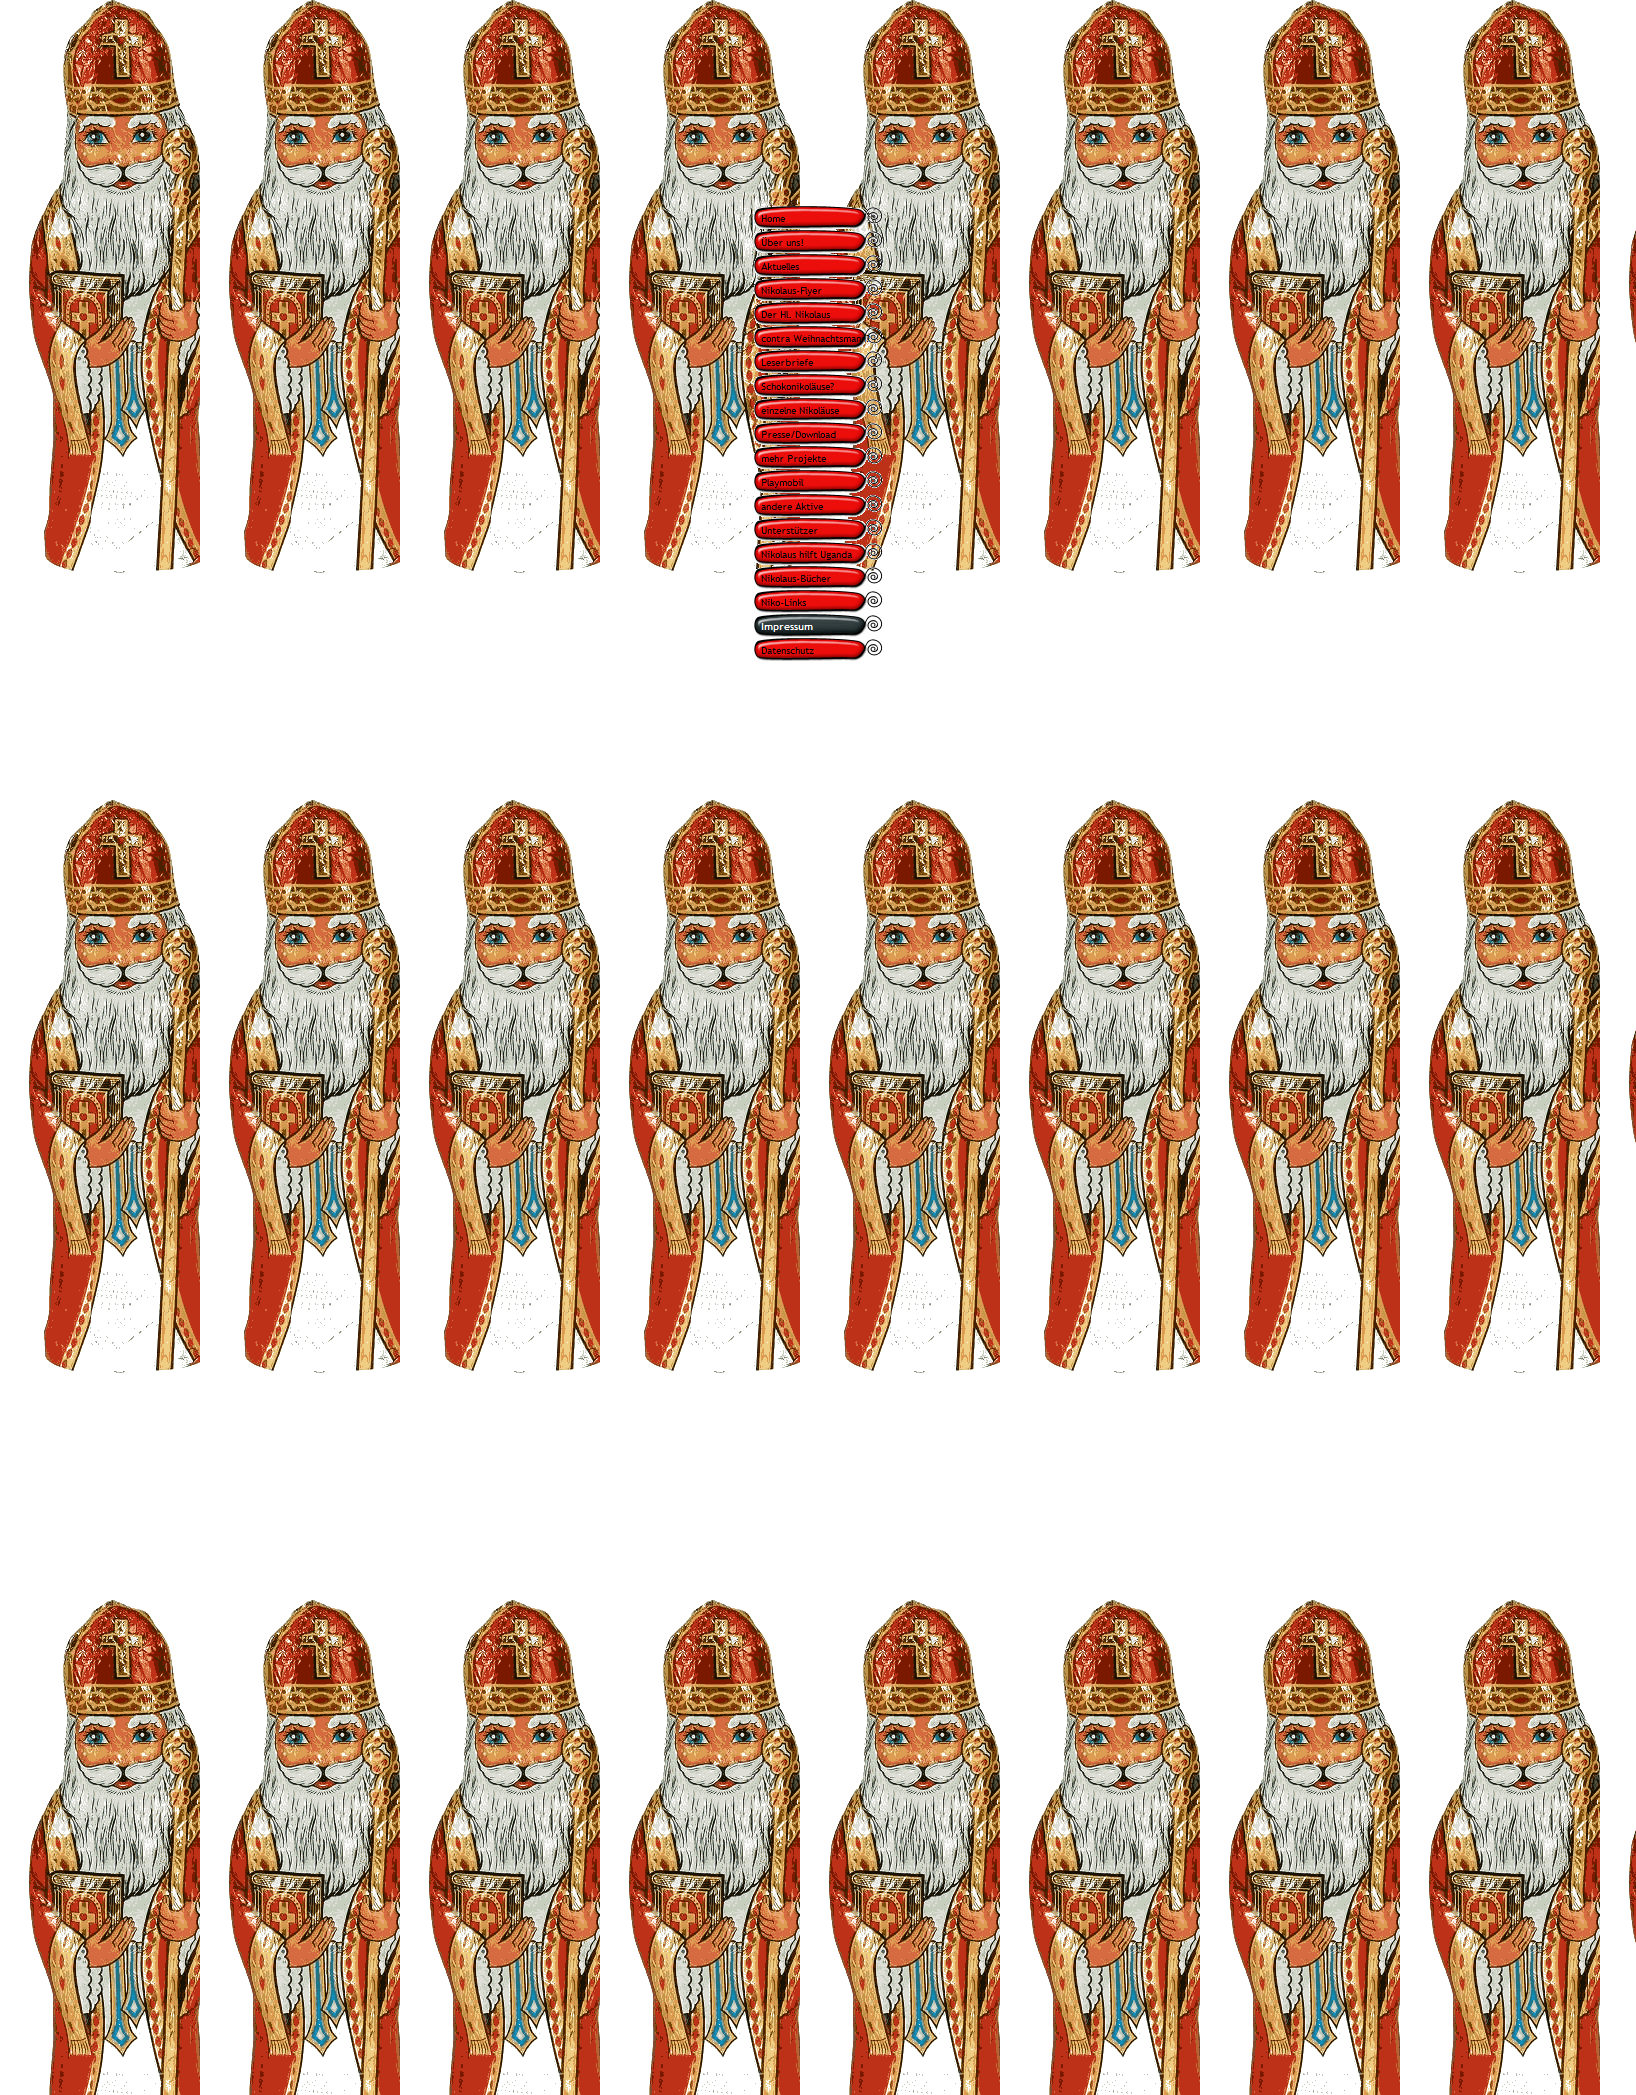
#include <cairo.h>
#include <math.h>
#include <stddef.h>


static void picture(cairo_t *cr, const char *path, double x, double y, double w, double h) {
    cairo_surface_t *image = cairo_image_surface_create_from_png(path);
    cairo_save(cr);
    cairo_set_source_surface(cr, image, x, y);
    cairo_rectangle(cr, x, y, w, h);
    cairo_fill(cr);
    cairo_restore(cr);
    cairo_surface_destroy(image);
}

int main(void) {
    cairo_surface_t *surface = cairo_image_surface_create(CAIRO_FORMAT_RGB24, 1636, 2095);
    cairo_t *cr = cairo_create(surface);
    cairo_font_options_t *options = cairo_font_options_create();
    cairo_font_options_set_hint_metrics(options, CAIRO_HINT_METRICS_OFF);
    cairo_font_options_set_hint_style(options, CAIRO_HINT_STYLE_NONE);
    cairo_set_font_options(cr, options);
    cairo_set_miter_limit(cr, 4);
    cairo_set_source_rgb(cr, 1, 1, 1);
    cairo_paint(cr);
    picture(cr, "img1.png", 29, 0, 1607, 2095);
    picture(cr, "img2.png", 754, 206, 129, 23);
    picture(cr, "img3.png", 754, 230, 129, 23);
    picture(cr, "img4.png", 754, 254, 129, 23);
    picture(cr, "img5.png", 754, 278, 129, 23);
    picture(cr, "img6.png", 754, 302, 129, 23);
    picture(cr, "img7.png", 754, 326, 129, 23);
    picture(cr, "img8.png", 754, 350, 129, 23);
    picture(cr, "img9.png", 754, 374, 129, 23);
    picture(cr, "img10.png", 754, 398, 129, 23);
    picture(cr, "img11.png", 754, 422, 129, 23);
    picture(cr, "img12.png", 754, 446, 129, 23);
    picture(cr, "img13.png", 754, 470, 129, 23);
    picture(cr, "img14.png", 754, 494, 129, 23);
    picture(cr, "img15.png", 754, 518, 129, 23);
    picture(cr, "img16.png", 754, 542, 129, 23);
    picture(cr, "img17.png", 754, 566, 129, 23);
    picture(cr, "img18.png", 754, 590, 129, 23);
    picture(cr, "img19.png", 754, 614, 129, 23);
    picture(cr, "img20.png", 754, 638, 129, 23);
    cairo_surface_write_to_png(surface, "page.png");
    cairo_font_options_destroy(options);
    cairo_destroy(cr);
    cairo_surface_destroy(surface);
    return 0;
}
